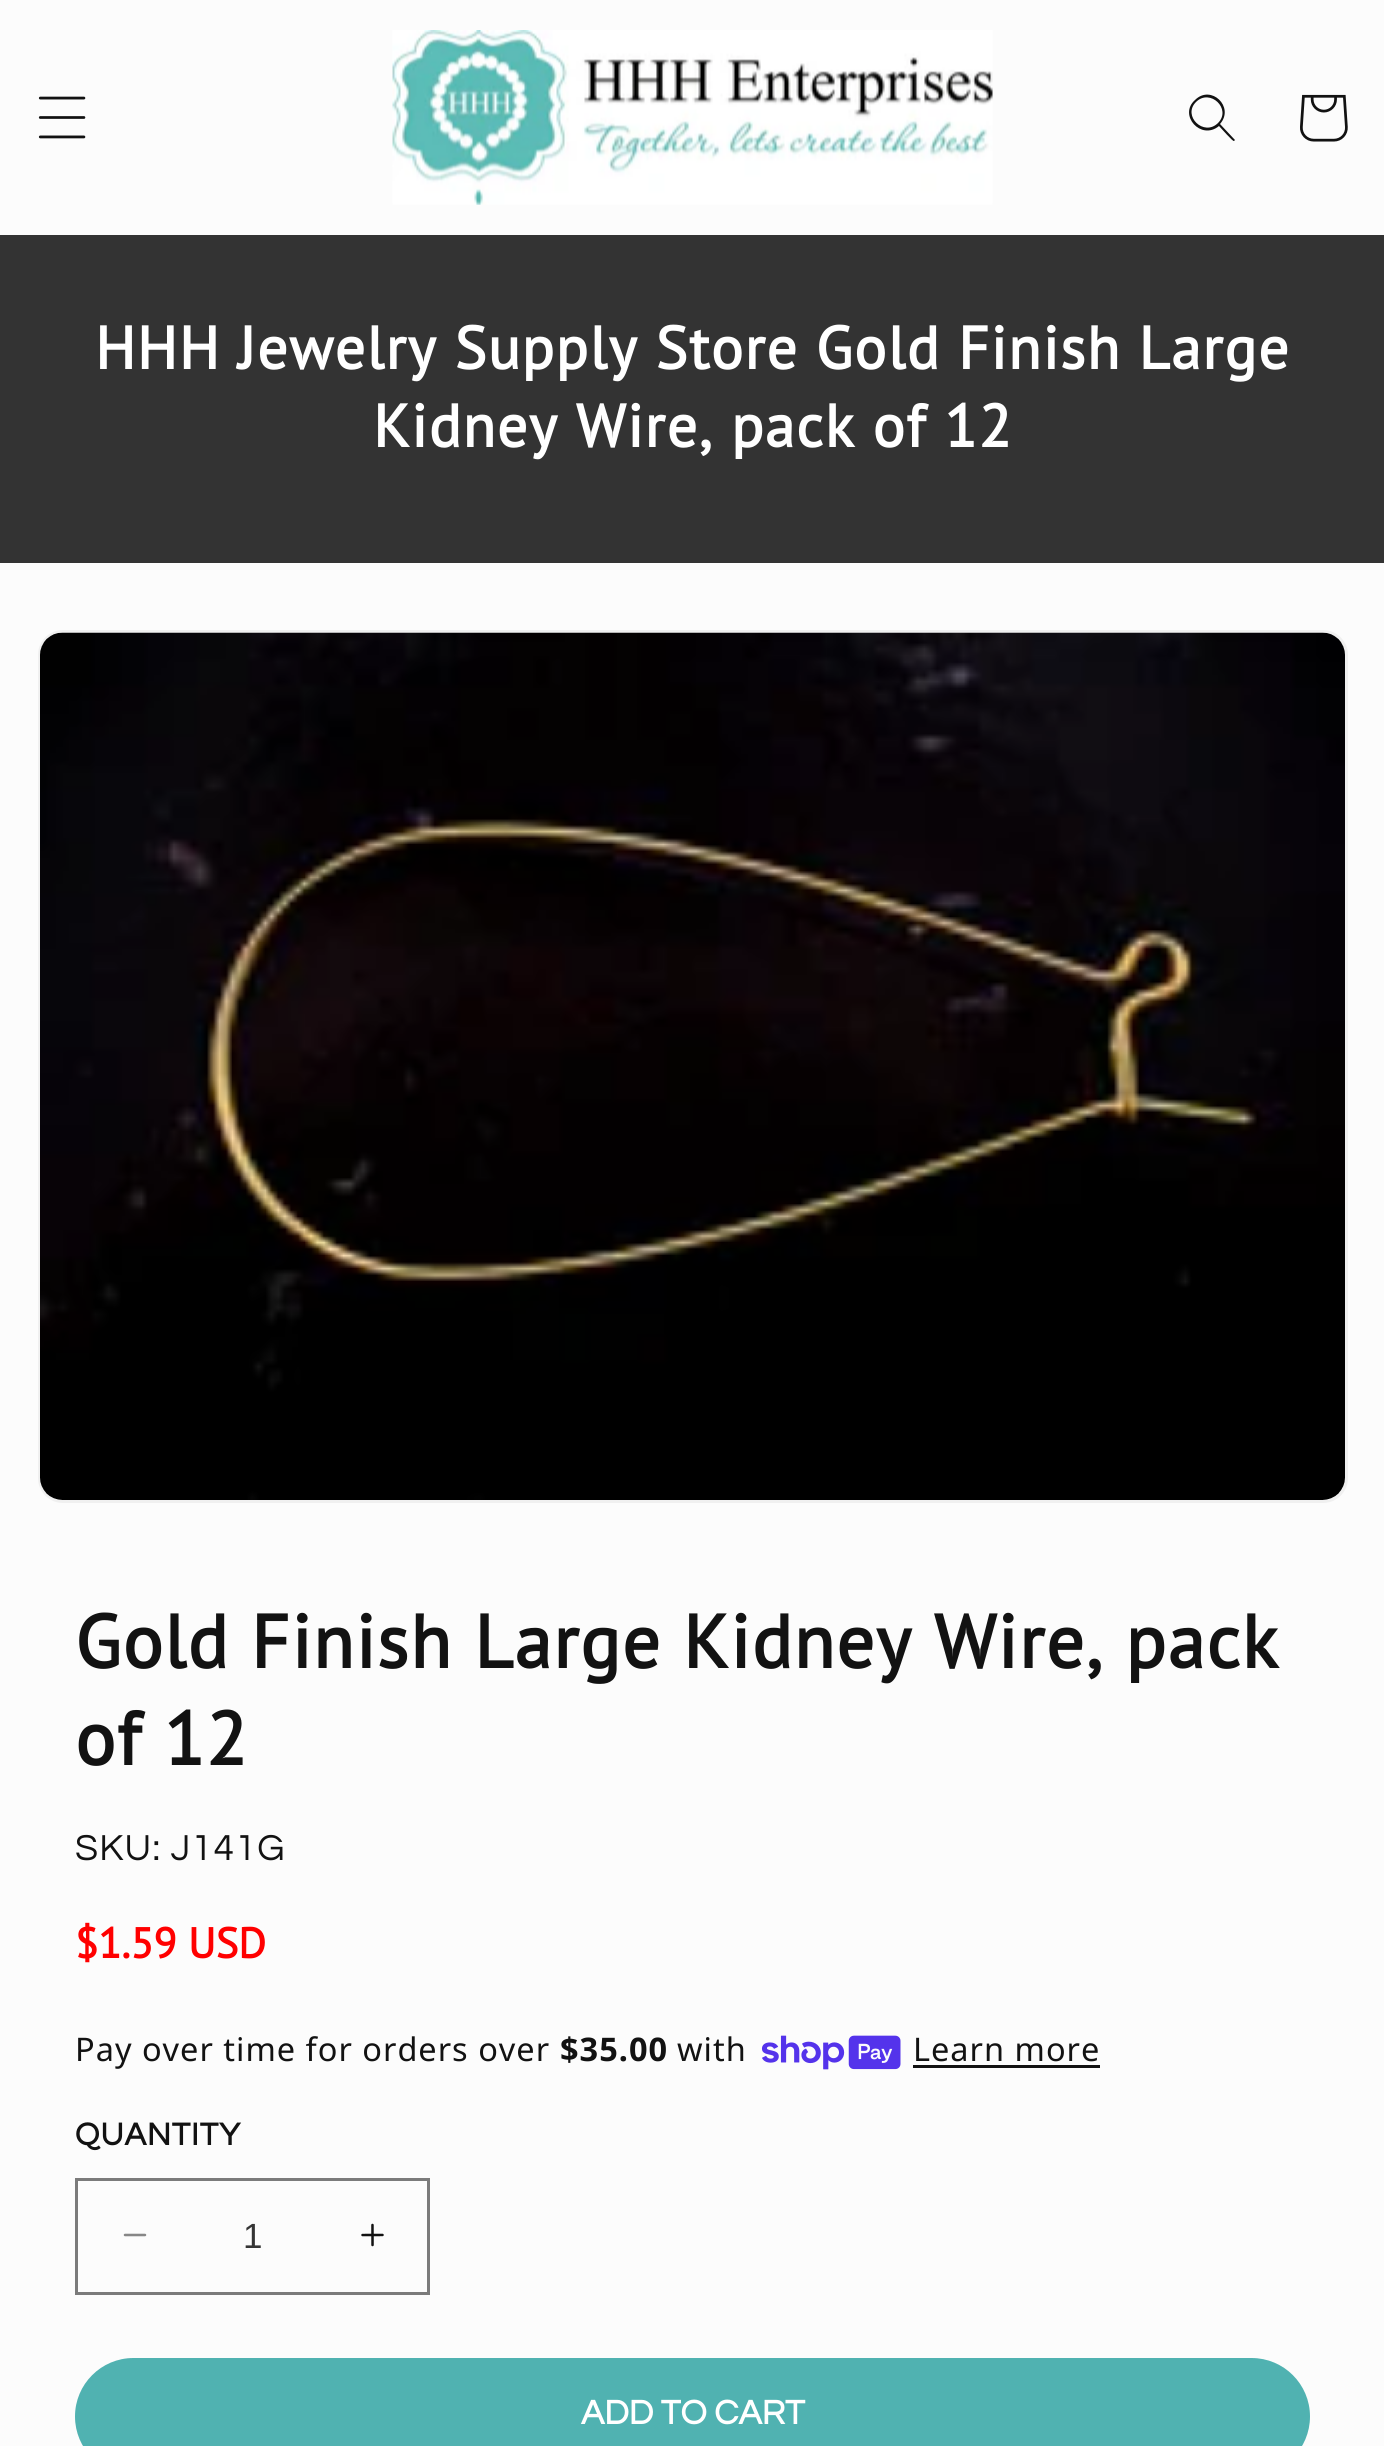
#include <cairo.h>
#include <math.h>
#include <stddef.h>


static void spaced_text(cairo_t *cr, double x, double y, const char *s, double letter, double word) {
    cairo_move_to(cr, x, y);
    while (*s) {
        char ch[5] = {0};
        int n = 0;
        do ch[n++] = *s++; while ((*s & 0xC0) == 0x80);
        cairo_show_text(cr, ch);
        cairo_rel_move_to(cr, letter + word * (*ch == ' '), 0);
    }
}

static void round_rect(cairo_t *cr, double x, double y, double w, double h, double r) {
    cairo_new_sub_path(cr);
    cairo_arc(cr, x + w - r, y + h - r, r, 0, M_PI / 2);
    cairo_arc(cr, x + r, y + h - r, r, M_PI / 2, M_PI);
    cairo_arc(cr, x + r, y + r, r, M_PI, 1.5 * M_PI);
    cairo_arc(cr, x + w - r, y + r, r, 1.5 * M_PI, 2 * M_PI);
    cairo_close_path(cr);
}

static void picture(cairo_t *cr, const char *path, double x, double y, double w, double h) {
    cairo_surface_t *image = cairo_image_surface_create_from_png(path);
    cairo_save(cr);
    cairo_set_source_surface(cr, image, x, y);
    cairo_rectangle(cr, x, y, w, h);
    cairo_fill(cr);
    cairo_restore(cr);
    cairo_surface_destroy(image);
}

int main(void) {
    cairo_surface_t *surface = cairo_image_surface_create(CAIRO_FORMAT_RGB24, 1384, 2446);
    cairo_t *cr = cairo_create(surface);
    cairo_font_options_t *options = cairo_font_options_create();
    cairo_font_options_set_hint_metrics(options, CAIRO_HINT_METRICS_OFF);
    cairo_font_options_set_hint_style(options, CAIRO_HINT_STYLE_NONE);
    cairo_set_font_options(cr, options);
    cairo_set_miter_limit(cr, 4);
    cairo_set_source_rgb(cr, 0.988, 0.988, 0.988);
    cairo_paint(cr);
    picture(cr, "img1.png", 38, 96, 48, 43);
    picture(cr, "img2.png", 392, 30, 601, 175);
    cairo_set_source_rgb(cr, 0.071, 0.071, 0.071);
    cairo_set_fill_rule(cr, CAIRO_FILL_RULE_EVEN_ODD);
    cairo_new_path(cr);
    cairo_move_to(cr, 1218, 123);
    cairo_curve_to(cr, 1204, 137, 1182, 116, 1196, 102);
    cairo_curve_to(cr, 1210, 88, 1232, 109, 1218, 123);
    cairo_close_path(cr);
    cairo_move_to(cr, 1219, 126);
    cairo_curve_to(cr, 1201, 141, 1178, 115, 1195, 100);
    cairo_curve_to(cr, 1211, 84, 1235, 107, 1220, 124);
    cairo_line_to(cr, 1235, 140);
    cairo_line_to(cr, 1234, 141);
    cairo_curve_to(cr, 1233, 142, 1221, 128, 1219, 126);
    cairo_close_path(cr);
    cairo_fill(cr);
    picture(cr, "img3.png", 1300, 94, 48, 48);
    cairo_set_source_rgb(cr, 0.2, 0.2, 0.2);
    cairo_rectangle(cr, 0, 235, 1384, 328);
    cairo_fill(cr);
    cairo_select_font_face(cr, "PT Sans", CAIRO_FONT_SLANT_NORMAL, CAIRO_FONT_WEIGHT_BOLD);
    cairo_set_font_size(cr, 60);
    cairo_set_source_rgb(cr, 1, 1, 1);
    spaced_text(cr, 95, 369, "HHH Jewelry Supply Store Gold Finish Large", 1.5, 0);
    spaced_text(cr, 373, 447, "Kidney Wire, pack of 12", 1.5, 0);
    round_rect(cr, 39.5, 631.5, 1307, 870, 23.5);
    cairo_set_source_rgb(cr, 0.941, 0.941, 0.941);
    cairo_set_line_width(cr, 3);
    cairo_stroke(cr);
    picture(cr, "img4.png", 40, 632, 1305, 868);
    cairo_set_font_size(cr, 75);
    cairo_set_source_rgb(cr, 0.071, 0.071, 0.071);
    spaced_text(cr, 75, 1668, "Gold Finish Large Kidney Wire, pack", 1.5, 0);
    spaced_text(cr, 75, 1765, "of 12", 1.5, 0);
    cairo_select_font_face(cr, "Questrial", CAIRO_FONT_SLANT_NORMAL, CAIRO_FONT_WEIGHT_NORMAL);
    cairo_set_font_size(cr, 37.5);
    spaced_text(cr, 75, 1860, "SKU: J141G", 1.25, 0);
    cairo_select_font_face(cr, "PT Sans", CAIRO_FONT_SLANT_NORMAL, CAIRO_FONT_WEIGHT_BOLD);
    cairo_set_font_size(cr, 42.5);
    cairo_set_source_rgb(cr, 1, 0, 0);
    cairo_move_to(cr, 75, 1958);
    cairo_show_text(cr, "$1.59 USD");
    cairo_select_font_face(cr, "Noto Sans", CAIRO_FONT_SLANT_NORMAL, CAIRO_FONT_WEIGHT_NORMAL);
    cairo_set_font_size(cr, 32.5);
    cairo_set_source_rgb(cr, 0.071, 0.071, 0.071);
    spaced_text(cr, 75, 2061, "Pay over time for orders over", 1, 0);
    cairo_select_font_face(cr, "Noto Sans", CAIRO_FONT_SLANT_NORMAL, CAIRO_FONT_WEIGHT_BOLD);
    spaced_text(cr, 560, 2061, "$35.00", 1, 0);
    cairo_select_font_face(cr, "Noto Sans", CAIRO_FONT_SLANT_NORMAL, CAIRO_FONT_WEIGHT_NORMAL);
    spaced_text(cr, 677, 2061, "with", 1, 0);
    picture(cr, "img5.png", 761, 2035, 140, 35);
    spaced_text(cr, 913, 2061, "Learn more", 1, 0);
    cairo_rectangle(cr, 913, 2065, 187, 3);
    cairo_fill(cr);
    cairo_select_font_face(cr, "Questrial", CAIRO_FONT_SLANT_NORMAL, CAIRO_FONT_WEIGHT_BOLD);
    spaced_text(cr, 75, 2145, "QUANTITY", 1, 0);
    picture(cr, "img6.png", 123, 2233, 24, 4);
    picture(cr, "img7.png", 361, 2223, 23, 24);
    cairo_rectangle(cr, 76.5, 2179.5, 352, 114);
    cairo_set_source_rgb(cr, 0.482, 0.482, 0.482);
    cairo_stroke(cr);
    cairo_select_font_face(cr, "Liberation Sans", CAIRO_FONT_SLANT_NORMAL, CAIRO_FONT_WEIGHT_NORMAL);
    cairo_set_font_size(cr, 35);
    cairo_set_source_rgb(cr, 0.208, 0.208, 0.208);
    cairo_move_to(cr, 243, 2248);
    cairo_show_text(cr, "1");
    cairo_set_source_rgb(cr, 0.314, 0.698, 0.694);
    round_rect(cr, 75, 2358, 1235, 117, 58.5);
    cairo_fill(cr);
    cairo_select_font_face(cr, "Questrial", CAIRO_FONT_SLANT_NORMAL, CAIRO_FONT_WEIGHT_BOLD);
    cairo_set_source_rgb(cr, 1, 1, 1);
    cairo_move_to(cr, 581, 2424);
    cairo_show_text(cr, "ADD TO CART");
    cairo_surface_write_to_png(surface, "page.png");
    cairo_font_options_destroy(options);
    cairo_destroy(cr);
    cairo_surface_destroy(surface);
    return 0;
}
